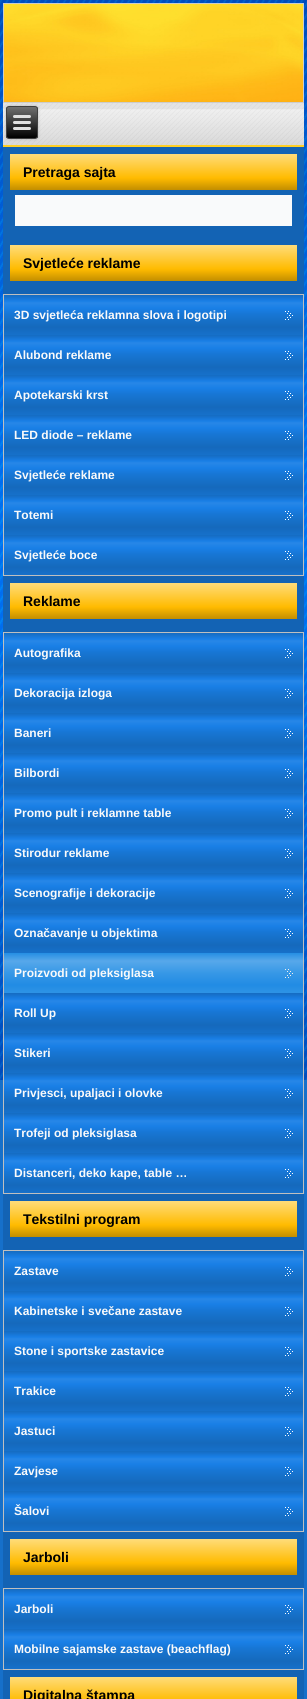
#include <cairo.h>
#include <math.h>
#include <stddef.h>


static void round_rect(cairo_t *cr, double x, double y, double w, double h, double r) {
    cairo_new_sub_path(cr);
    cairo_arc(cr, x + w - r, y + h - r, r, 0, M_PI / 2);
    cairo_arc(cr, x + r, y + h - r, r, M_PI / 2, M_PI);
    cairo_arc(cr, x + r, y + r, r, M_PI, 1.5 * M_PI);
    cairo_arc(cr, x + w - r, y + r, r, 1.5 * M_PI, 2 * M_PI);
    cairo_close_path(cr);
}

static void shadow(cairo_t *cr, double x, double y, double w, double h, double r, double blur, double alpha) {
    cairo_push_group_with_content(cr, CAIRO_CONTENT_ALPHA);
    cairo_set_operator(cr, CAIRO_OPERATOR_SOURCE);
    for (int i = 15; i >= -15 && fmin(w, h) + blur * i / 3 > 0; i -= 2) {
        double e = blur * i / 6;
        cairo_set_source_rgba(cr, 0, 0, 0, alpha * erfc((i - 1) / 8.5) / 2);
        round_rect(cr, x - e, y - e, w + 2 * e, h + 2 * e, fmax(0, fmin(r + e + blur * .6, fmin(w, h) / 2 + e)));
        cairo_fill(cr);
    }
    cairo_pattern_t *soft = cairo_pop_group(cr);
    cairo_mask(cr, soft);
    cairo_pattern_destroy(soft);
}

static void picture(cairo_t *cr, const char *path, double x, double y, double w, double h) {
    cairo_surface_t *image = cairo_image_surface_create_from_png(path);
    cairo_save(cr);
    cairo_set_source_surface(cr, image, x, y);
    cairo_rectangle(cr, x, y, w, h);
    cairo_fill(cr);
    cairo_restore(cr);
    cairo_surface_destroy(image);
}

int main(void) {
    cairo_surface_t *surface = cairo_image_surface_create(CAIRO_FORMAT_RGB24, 307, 1699);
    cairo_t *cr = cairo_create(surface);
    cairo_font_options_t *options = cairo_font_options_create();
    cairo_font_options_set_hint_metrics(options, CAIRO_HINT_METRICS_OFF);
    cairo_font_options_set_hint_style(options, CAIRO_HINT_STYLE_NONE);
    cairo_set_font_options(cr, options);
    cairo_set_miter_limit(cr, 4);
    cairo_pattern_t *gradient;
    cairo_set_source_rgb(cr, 0.086, 0.439, 0.792);
    cairo_paint(cr);
    picture(cr, "img1.png", 0, 0, 307, 1080);
    picture(cr, "img2.png", 4, 4, 299, 98);
    cairo_rectangle(cr, 3.5, 3.5, 300, 99);
    cairo_set_source_rgb(cr, 0.8, 0.8, 0.8);
    cairo_set_line_width(cr, 1);
    cairo_stroke(cr);
    picture(cr, "img3.png", 3, 103, 301, 42);
    cairo_set_source_rgb(cr, 1, 0.812, 0.141);
    cairo_rectangle(cr, 3, 145, 301, 2);
    cairo_fill(cr);
    cairo_set_source_rgb(cr, 0, 0, 0);
    shadow(cr, 6, 106, 32, 33, 3, 1.5, 0.2);
    cairo_save(cr);
    round_rect(cr, 6, 106, 32, 33, 3);
    cairo_clip(cr);
    gradient = cairo_pattern_create_linear(22, 107, 22, 138);
    cairo_pattern_add_color_stop_rgba(gradient, 0, 0.439, 0.439, 0.439, 1);
    cairo_pattern_add_color_stop_rgba(gradient, 1, 0, 0, 0, 1);
    cairo_set_source(cr, gradient);
    cairo_pattern_destroy(gradient);
    cairo_rectangle(cr, 6, 107, 32, 31);
    cairo_fill(cr);
    cairo_restore(cr);
    round_rect(cr, 6.5, 106.5, 31, 32, 2.5);
    cairo_set_source_rgb(cr, 0.251, 0.251, 0.251);
    cairo_stroke(cr);
    cairo_set_source_rgb(cr, 0.878, 0.878, 0.878);
    round_rect(cr, 13, 115, 18, 3, 1.5);
    cairo_fill(cr);
    round_rect(cr, 13, 121, 18, 3, 1.5);
    cairo_fill(cr);
    round_rect(cr, 13, 127, 18, 3, 1.5);
    cairo_fill(cr);
    cairo_set_source_rgb(cr, 0.075, 0.388, 0.706);
    cairo_rectangle(cr, 3, 147, 301, 147);
    cairo_fill(cr);
    gradient = cairo_pattern_create_linear(154, 154, 154, 190);
    cairo_pattern_add_color_stop_rgba(gradient, 0, 1, 0.863, 0.478, 1);
    cairo_pattern_add_color_stop_rgba(gradient, 0.67, 1, 0.733, 0, 1);
    cairo_pattern_add_color_stop_rgba(gradient, 1, 0.761, 0.557, 0, 1);
    cairo_set_source(cr, gradient);
    cairo_pattern_destroy(gradient);
    cairo_rectangle(cr, 10, 154, 287, 36);
    cairo_fill(cr);
    cairo_select_font_face(cr, "Liberation Sans", CAIRO_FONT_SLANT_NORMAL, CAIRO_FONT_WEIGHT_BOLD);
    cairo_set_font_size(cr, 14);
    cairo_set_source_rgb(cr, 0, 0, 0);
    cairo_move_to(cr, 23, 177);
    cairo_show_text(cr, "Pretraga sajta");
    cairo_set_source_rgb(cr, 0.973, 0.98, 0.984);
    cairo_rectangle(cr, 15, 195, 277, 31);
    cairo_fill(cr);
    gradient = cairo_pattern_create_linear(154, 245, 154, 281);
    cairo_pattern_add_color_stop_rgba(gradient, 0, 1, 0.863, 0.478, 1);
    cairo_pattern_add_color_stop_rgba(gradient, 0.67, 1, 0.733, 0, 1);
    cairo_pattern_add_color_stop_rgba(gradient, 1, 0.761, 0.557, 0, 1);
    cairo_set_source(cr, gradient);
    cairo_pattern_destroy(gradient);
    cairo_rectangle(cr, 10, 245, 287, 36);
    cairo_fill(cr);
    cairo_set_source_rgb(cr, 0, 0, 0);
    cairo_move_to(cr, 23, 268);
    cairo_show_text(cr, "Svjetleće reklame");
    cairo_rectangle(cr, 3.5, 294.5, 300, 281);
    cairo_set_source_rgb(cr, 0.749, 0.749, 0.749);
    cairo_stroke(cr);
    gradient = cairo_pattern_create_linear(154, 295, 154, 335);
    cairo_pattern_add_color_stop_rgba(gradient, 0, 0.082, 0.42, 0.757, 1);
    cairo_pattern_add_color_stop_rgba(gradient, 0.15, 0.098, 0.498, 0.902, 1);
    cairo_pattern_add_color_stop_rgba(gradient, 0.2, 0.153, 0.529, 0.906, 1);
    cairo_pattern_add_color_stop_rgba(gradient, 0.33, 0.098, 0.498, 0.902, 1);
    cairo_pattern_add_color_stop_rgba(gradient, 0.5, 0.09, 0.459, 0.827, 1);
    cairo_pattern_add_color_stop_rgba(gradient, 0.8, 0.082, 0.412, 0.737, 1);
    cairo_pattern_add_color_stop_rgba(gradient, 1, 0.086, 0.439, 0.792, 1);
    cairo_set_source(cr, gradient);
    cairo_pattern_destroy(gradient);
    cairo_rectangle(cr, 4, 295, 299, 40);
    cairo_fill(cr);
    cairo_set_font_size(cr, 12);
    cairo_set_source_rgb(cr, 0.98, 0.98, 0.98);
    cairo_move_to(cr, 14, 319);
    cairo_show_text(cr, "3D svjetleća reklamna slova i logotipi");
    picture(cr, "img4.png", 285, 311, 8, 9);
    gradient = cairo_pattern_create_linear(154, 335, 154, 375);
    cairo_pattern_add_color_stop_rgba(gradient, 0, 0.082, 0.42, 0.757, 1);
    cairo_pattern_add_color_stop_rgba(gradient, 0.15, 0.098, 0.498, 0.902, 1);
    cairo_pattern_add_color_stop_rgba(gradient, 0.2, 0.153, 0.529, 0.906, 1);
    cairo_pattern_add_color_stop_rgba(gradient, 0.33, 0.098, 0.498, 0.902, 1);
    cairo_pattern_add_color_stop_rgba(gradient, 0.5, 0.09, 0.459, 0.827, 1);
    cairo_pattern_add_color_stop_rgba(gradient, 0.8, 0.082, 0.412, 0.737, 1);
    cairo_pattern_add_color_stop_rgba(gradient, 1, 0.086, 0.439, 0.792, 1);
    cairo_set_source(cr, gradient);
    cairo_pattern_destroy(gradient);
    cairo_rectangle(cr, 4, 335, 299, 40);
    cairo_fill(cr);
    cairo_set_source_rgb(cr, 0.98, 0.98, 0.98);
    cairo_move_to(cr, 14, 359);
    cairo_show_text(cr, "Alubond reklame");
    picture(cr, "img4.png", 285, 351, 8, 9);
    gradient = cairo_pattern_create_linear(154, 375, 154, 415);
    cairo_pattern_add_color_stop_rgba(gradient, 0, 0.082, 0.42, 0.757, 1);
    cairo_pattern_add_color_stop_rgba(gradient, 0.15, 0.098, 0.498, 0.902, 1);
    cairo_pattern_add_color_stop_rgba(gradient, 0.2, 0.153, 0.529, 0.906, 1);
    cairo_pattern_add_color_stop_rgba(gradient, 0.33, 0.098, 0.498, 0.902, 1);
    cairo_pattern_add_color_stop_rgba(gradient, 0.5, 0.09, 0.459, 0.827, 1);
    cairo_pattern_add_color_stop_rgba(gradient, 0.8, 0.082, 0.412, 0.737, 1);
    cairo_pattern_add_color_stop_rgba(gradient, 1, 0.086, 0.439, 0.792, 1);
    cairo_set_source(cr, gradient);
    cairo_pattern_destroy(gradient);
    cairo_rectangle(cr, 4, 375, 299, 40);
    cairo_fill(cr);
    cairo_set_source_rgb(cr, 0.98, 0.98, 0.98);
    cairo_move_to(cr, 14, 399);
    cairo_show_text(cr, "Apotekarski krst");
    picture(cr, "img4.png", 285, 391, 8, 9);
    gradient = cairo_pattern_create_linear(154, 415, 154, 455);
    cairo_pattern_add_color_stop_rgba(gradient, 0, 0.082, 0.42, 0.757, 1);
    cairo_pattern_add_color_stop_rgba(gradient, 0.15, 0.098, 0.498, 0.902, 1);
    cairo_pattern_add_color_stop_rgba(gradient, 0.2, 0.153, 0.529, 0.906, 1);
    cairo_pattern_add_color_stop_rgba(gradient, 0.33, 0.098, 0.498, 0.902, 1);
    cairo_pattern_add_color_stop_rgba(gradient, 0.5, 0.09, 0.459, 0.827, 1);
    cairo_pattern_add_color_stop_rgba(gradient, 0.8, 0.082, 0.412, 0.737, 1);
    cairo_pattern_add_color_stop_rgba(gradient, 1, 0.086, 0.439, 0.792, 1);
    cairo_set_source(cr, gradient);
    cairo_pattern_destroy(gradient);
    cairo_rectangle(cr, 4, 415, 299, 40);
    cairo_fill(cr);
    cairo_set_source_rgb(cr, 0.98, 0.98, 0.98);
    cairo_move_to(cr, 14, 439);
    cairo_show_text(cr, "LED diode – reklame");
    picture(cr, "img4.png", 285, 431, 8, 9);
    gradient = cairo_pattern_create_linear(154, 455, 154, 495);
    cairo_pattern_add_color_stop_rgba(gradient, 0, 0.082, 0.42, 0.757, 1);
    cairo_pattern_add_color_stop_rgba(gradient, 0.15, 0.098, 0.498, 0.902, 1);
    cairo_pattern_add_color_stop_rgba(gradient, 0.2, 0.153, 0.529, 0.906, 1);
    cairo_pattern_add_color_stop_rgba(gradient, 0.33, 0.098, 0.498, 0.902, 1);
    cairo_pattern_add_color_stop_rgba(gradient, 0.5, 0.09, 0.459, 0.827, 1);
    cairo_pattern_add_color_stop_rgba(gradient, 0.8, 0.082, 0.412, 0.737, 1);
    cairo_pattern_add_color_stop_rgba(gradient, 1, 0.086, 0.439, 0.792, 1);
    cairo_set_source(cr, gradient);
    cairo_pattern_destroy(gradient);
    cairo_rectangle(cr, 4, 455, 299, 40);
    cairo_fill(cr);
    cairo_set_source_rgb(cr, 0.98, 0.98, 0.98);
    cairo_move_to(cr, 14, 479);
    cairo_show_text(cr, "Svjetleće reklame");
    picture(cr, "img4.png", 285, 471, 8, 9);
    gradient = cairo_pattern_create_linear(154, 495, 154, 535);
    cairo_pattern_add_color_stop_rgba(gradient, 0, 0.082, 0.42, 0.757, 1);
    cairo_pattern_add_color_stop_rgba(gradient, 0.15, 0.098, 0.498, 0.902, 1);
    cairo_pattern_add_color_stop_rgba(gradient, 0.2, 0.153, 0.529, 0.906, 1);
    cairo_pattern_add_color_stop_rgba(gradient, 0.33, 0.098, 0.498, 0.902, 1);
    cairo_pattern_add_color_stop_rgba(gradient, 0.5, 0.09, 0.459, 0.827, 1);
    cairo_pattern_add_color_stop_rgba(gradient, 0.8, 0.082, 0.412, 0.737, 1);
    cairo_pattern_add_color_stop_rgba(gradient, 1, 0.086, 0.439, 0.792, 1);
    cairo_set_source(cr, gradient);
    cairo_pattern_destroy(gradient);
    cairo_rectangle(cr, 4, 495, 299, 40);
    cairo_fill(cr);
    cairo_set_source_rgb(cr, 0.98, 0.98, 0.98);
    cairo_move_to(cr, 14, 519);
    cairo_show_text(cr, "Totemi");
    picture(cr, "img4.png", 285, 511, 8, 9);
    gradient = cairo_pattern_create_linear(154, 535, 154, 575);
    cairo_pattern_add_color_stop_rgba(gradient, 0, 0.082, 0.42, 0.757, 1);
    cairo_pattern_add_color_stop_rgba(gradient, 0.15, 0.098, 0.498, 0.902, 1);
    cairo_pattern_add_color_stop_rgba(gradient, 0.2, 0.153, 0.529, 0.906, 1);
    cairo_pattern_add_color_stop_rgba(gradient, 0.33, 0.098, 0.498, 0.902, 1);
    cairo_pattern_add_color_stop_rgba(gradient, 0.5, 0.09, 0.459, 0.827, 1);
    cairo_pattern_add_color_stop_rgba(gradient, 0.8, 0.082, 0.412, 0.737, 1);
    cairo_pattern_add_color_stop_rgba(gradient, 1, 0.086, 0.439, 0.792, 1);
    cairo_set_source(cr, gradient);
    cairo_pattern_destroy(gradient);
    cairo_rectangle(cr, 4, 535, 299, 40);
    cairo_fill(cr);
    cairo_set_source_rgb(cr, 0.98, 0.98, 0.98);
    cairo_move_to(cr, 14, 559);
    cairo_show_text(cr, "Svjetleće boce");
    picture(cr, "img4.png", 285, 551, 8, 9);
    cairo_set_source_rgb(cr, 0.075, 0.388, 0.706);
    cairo_rectangle(cr, 3, 576, 301, 56);
    cairo_fill(cr);
    gradient = cairo_pattern_create_linear(154, 583, 154, 619);
    cairo_pattern_add_color_stop_rgba(gradient, 0, 1, 0.863, 0.478, 1);
    cairo_pattern_add_color_stop_rgba(gradient, 0.67, 1, 0.733, 0, 1);
    cairo_pattern_add_color_stop_rgba(gradient, 1, 0.761, 0.557, 0, 1);
    cairo_set_source(cr, gradient);
    cairo_pattern_destroy(gradient);
    cairo_rectangle(cr, 10, 583, 287, 36);
    cairo_fill(cr);
    cairo_set_font_size(cr, 14);
    cairo_set_source_rgb(cr, 0, 0, 0);
    cairo_move_to(cr, 23, 606);
    cairo_show_text(cr, "Reklame");
    cairo_rectangle(cr, 3.5, 632.5, 300, 561);
    cairo_set_source_rgb(cr, 0.749, 0.749, 0.749);
    cairo_stroke(cr);
    gradient = cairo_pattern_create_linear(154, 633, 154, 673);
    cairo_pattern_add_color_stop_rgba(gradient, 0, 0.082, 0.42, 0.757, 1);
    cairo_pattern_add_color_stop_rgba(gradient, 0.15, 0.098, 0.498, 0.902, 1);
    cairo_pattern_add_color_stop_rgba(gradient, 0.2, 0.153, 0.529, 0.906, 1);
    cairo_pattern_add_color_stop_rgba(gradient, 0.33, 0.098, 0.498, 0.902, 1);
    cairo_pattern_add_color_stop_rgba(gradient, 0.5, 0.09, 0.459, 0.827, 1);
    cairo_pattern_add_color_stop_rgba(gradient, 0.8, 0.082, 0.412, 0.737, 1);
    cairo_pattern_add_color_stop_rgba(gradient, 1, 0.086, 0.439, 0.792, 1);
    cairo_set_source(cr, gradient);
    cairo_pattern_destroy(gradient);
    cairo_rectangle(cr, 4, 633, 299, 40);
    cairo_fill(cr);
    cairo_set_font_size(cr, 12);
    cairo_set_source_rgb(cr, 0.98, 0.98, 0.98);
    cairo_move_to(cr, 14, 657);
    cairo_show_text(cr, "Autografika");
    picture(cr, "img4.png", 285, 649, 8, 9);
    gradient = cairo_pattern_create_linear(154, 673, 154, 713);
    cairo_pattern_add_color_stop_rgba(gradient, 0, 0.082, 0.42, 0.757, 1);
    cairo_pattern_add_color_stop_rgba(gradient, 0.15, 0.098, 0.498, 0.902, 1);
    cairo_pattern_add_color_stop_rgba(gradient, 0.2, 0.153, 0.529, 0.906, 1);
    cairo_pattern_add_color_stop_rgba(gradient, 0.33, 0.098, 0.498, 0.902, 1);
    cairo_pattern_add_color_stop_rgba(gradient, 0.5, 0.09, 0.459, 0.827, 1);
    cairo_pattern_add_color_stop_rgba(gradient, 0.8, 0.082, 0.412, 0.737, 1);
    cairo_pattern_add_color_stop_rgba(gradient, 1, 0.086, 0.439, 0.792, 1);
    cairo_set_source(cr, gradient);
    cairo_pattern_destroy(gradient);
    cairo_rectangle(cr, 4, 673, 299, 40);
    cairo_fill(cr);
    cairo_set_source_rgb(cr, 0.98, 0.98, 0.98);
    cairo_move_to(cr, 14, 697);
    cairo_show_text(cr, "Dekoracija izloga");
    picture(cr, "img4.png", 285, 689, 8, 9);
    gradient = cairo_pattern_create_linear(154, 713, 154, 753);
    cairo_pattern_add_color_stop_rgba(gradient, 0, 0.082, 0.42, 0.757, 1);
    cairo_pattern_add_color_stop_rgba(gradient, 0.15, 0.098, 0.498, 0.902, 1);
    cairo_pattern_add_color_stop_rgba(gradient, 0.2, 0.153, 0.529, 0.906, 1);
    cairo_pattern_add_color_stop_rgba(gradient, 0.33, 0.098, 0.498, 0.902, 1);
    cairo_pattern_add_color_stop_rgba(gradient, 0.5, 0.09, 0.459, 0.827, 1);
    cairo_pattern_add_color_stop_rgba(gradient, 0.8, 0.082, 0.412, 0.737, 1);
    cairo_pattern_add_color_stop_rgba(gradient, 1, 0.086, 0.439, 0.792, 1);
    cairo_set_source(cr, gradient);
    cairo_pattern_destroy(gradient);
    cairo_rectangle(cr, 4, 713, 299, 40);
    cairo_fill(cr);
    cairo_set_source_rgb(cr, 0.98, 0.98, 0.98);
    cairo_move_to(cr, 14, 737);
    cairo_show_text(cr, "Baneri");
    picture(cr, "img4.png", 285, 729, 8, 9);
    gradient = cairo_pattern_create_linear(154, 753, 154, 793);
    cairo_pattern_add_color_stop_rgba(gradient, 0, 0.082, 0.42, 0.757, 1);
    cairo_pattern_add_color_stop_rgba(gradient, 0.15, 0.098, 0.498, 0.902, 1);
    cairo_pattern_add_color_stop_rgba(gradient, 0.2, 0.153, 0.529, 0.906, 1);
    cairo_pattern_add_color_stop_rgba(gradient, 0.33, 0.098, 0.498, 0.902, 1);
    cairo_pattern_add_color_stop_rgba(gradient, 0.5, 0.09, 0.459, 0.827, 1);
    cairo_pattern_add_color_stop_rgba(gradient, 0.8, 0.082, 0.412, 0.737, 1);
    cairo_pattern_add_color_stop_rgba(gradient, 1, 0.086, 0.439, 0.792, 1);
    cairo_set_source(cr, gradient);
    cairo_pattern_destroy(gradient);
    cairo_rectangle(cr, 4, 753, 299, 40);
    cairo_fill(cr);
    cairo_set_source_rgb(cr, 0.98, 0.98, 0.98);
    cairo_move_to(cr, 14, 777);
    cairo_show_text(cr, "Bilbordi");
    picture(cr, "img4.png", 285, 769, 8, 9);
    gradient = cairo_pattern_create_linear(154, 793, 154, 833);
    cairo_pattern_add_color_stop_rgba(gradient, 0, 0.082, 0.42, 0.757, 1);
    cairo_pattern_add_color_stop_rgba(gradient, 0.15, 0.098, 0.498, 0.902, 1);
    cairo_pattern_add_color_stop_rgba(gradient, 0.2, 0.153, 0.529, 0.906, 1);
    cairo_pattern_add_color_stop_rgba(gradient, 0.33, 0.098, 0.498, 0.902, 1);
    cairo_pattern_add_color_stop_rgba(gradient, 0.5, 0.09, 0.459, 0.827, 1);
    cairo_pattern_add_color_stop_rgba(gradient, 0.8, 0.082, 0.412, 0.737, 1);
    cairo_pattern_add_color_stop_rgba(gradient, 1, 0.086, 0.439, 0.792, 1);
    cairo_set_source(cr, gradient);
    cairo_pattern_destroy(gradient);
    cairo_rectangle(cr, 4, 793, 299, 40);
    cairo_fill(cr);
    cairo_set_source_rgb(cr, 0.98, 0.98, 0.98);
    cairo_move_to(cr, 14, 817);
    cairo_show_text(cr, "Promo pult i reklamne table");
    picture(cr, "img4.png", 285, 809, 8, 9);
    gradient = cairo_pattern_create_linear(154, 833, 154, 873);
    cairo_pattern_add_color_stop_rgba(gradient, 0, 0.082, 0.42, 0.757, 1);
    cairo_pattern_add_color_stop_rgba(gradient, 0.15, 0.098, 0.498, 0.902, 1);
    cairo_pattern_add_color_stop_rgba(gradient, 0.2, 0.153, 0.529, 0.906, 1);
    cairo_pattern_add_color_stop_rgba(gradient, 0.33, 0.098, 0.498, 0.902, 1);
    cairo_pattern_add_color_stop_rgba(gradient, 0.5, 0.09, 0.459, 0.827, 1);
    cairo_pattern_add_color_stop_rgba(gradient, 0.8, 0.082, 0.412, 0.737, 1);
    cairo_pattern_add_color_stop_rgba(gradient, 1, 0.086, 0.439, 0.792, 1);
    cairo_set_source(cr, gradient);
    cairo_pattern_destroy(gradient);
    cairo_rectangle(cr, 4, 833, 299, 40);
    cairo_fill(cr);
    cairo_set_source_rgb(cr, 0.98, 0.98, 0.98);
    cairo_move_to(cr, 14, 857);
    cairo_show_text(cr, "Stirodur reklame");
    picture(cr, "img4.png", 285, 849, 8, 9);
    gradient = cairo_pattern_create_linear(154, 873, 154, 913);
    cairo_pattern_add_color_stop_rgba(gradient, 0, 0.082, 0.42, 0.757, 1);
    cairo_pattern_add_color_stop_rgba(gradient, 0.15, 0.098, 0.498, 0.902, 1);
    cairo_pattern_add_color_stop_rgba(gradient, 0.2, 0.153, 0.529, 0.906, 1);
    cairo_pattern_add_color_stop_rgba(gradient, 0.33, 0.098, 0.498, 0.902, 1);
    cairo_pattern_add_color_stop_rgba(gradient, 0.5, 0.09, 0.459, 0.827, 1);
    cairo_pattern_add_color_stop_rgba(gradient, 0.8, 0.082, 0.412, 0.737, 1);
    cairo_pattern_add_color_stop_rgba(gradient, 1, 0.086, 0.439, 0.792, 1);
    cairo_set_source(cr, gradient);
    cairo_pattern_destroy(gradient);
    cairo_rectangle(cr, 4, 873, 299, 40);
    cairo_fill(cr);
    cairo_set_source_rgb(cr, 0.98, 0.98, 0.98);
    cairo_move_to(cr, 14, 897);
    cairo_show_text(cr, "Scenografije i dekoracije");
    picture(cr, "img4.png", 285, 889, 8, 9);
    gradient = cairo_pattern_create_linear(154, 913, 154, 953);
    cairo_pattern_add_color_stop_rgba(gradient, 0, 0.082, 0.42, 0.757, 1);
    cairo_pattern_add_color_stop_rgba(gradient, 0.15, 0.098, 0.498, 0.902, 1);
    cairo_pattern_add_color_stop_rgba(gradient, 0.2, 0.153, 0.529, 0.906, 1);
    cairo_pattern_add_color_stop_rgba(gradient, 0.33, 0.098, 0.498, 0.902, 1);
    cairo_pattern_add_color_stop_rgba(gradient, 0.5, 0.09, 0.459, 0.827, 1);
    cairo_pattern_add_color_stop_rgba(gradient, 0.8, 0.082, 0.412, 0.737, 1);
    cairo_pattern_add_color_stop_rgba(gradient, 1, 0.086, 0.439, 0.792, 1);
    cairo_set_source(cr, gradient);
    cairo_pattern_destroy(gradient);
    cairo_rectangle(cr, 4, 913, 299, 40);
    cairo_fill(cr);
    cairo_set_source_rgb(cr, 0.98, 0.98, 0.98);
    cairo_move_to(cr, 14, 937);
    cairo_show_text(cr, "Označavanje u objektima");
    picture(cr, "img4.png", 285, 929, 8, 9);
    gradient = cairo_pattern_create_linear(154, 953, 154, 993);
    cairo_pattern_add_color_stop_rgba(gradient, 0, 0.145, 0.557, 0.894, 1);
    cairo_pattern_add_color_stop_rgba(gradient, 0.2, 0.341, 0.659, 0.918, 1);
    cairo_pattern_add_color_stop_rgba(gradient, 0.5, 0.216, 0.596, 0.902, 1);
    cairo_pattern_add_color_stop_rgba(gradient, 0.8, 0.129, 0.549, 0.894, 1);
    cairo_pattern_add_color_stop_rgba(gradient, 1, 0.18, 0.576, 0.898, 1);
    cairo_set_source(cr, gradient);
    cairo_pattern_destroy(gradient);
    cairo_rectangle(cr, 4, 953, 299, 40);
    cairo_fill(cr);
    cairo_set_source_rgb(cr, 0.98, 0.98, 0.98);
    cairo_move_to(cr, 14, 977);
    cairo_show_text(cr, "Proizvodi od pleksiglasa");
    picture(cr, "img5.png", 285, 969, 8, 9);
    gradient = cairo_pattern_create_linear(154, 993, 154, 1033);
    cairo_pattern_add_color_stop_rgba(gradient, 0, 0.082, 0.42, 0.757, 1);
    cairo_pattern_add_color_stop_rgba(gradient, 0.15, 0.098, 0.498, 0.902, 1);
    cairo_pattern_add_color_stop_rgba(gradient, 0.2, 0.153, 0.529, 0.906, 1);
    cairo_pattern_add_color_stop_rgba(gradient, 0.33, 0.098, 0.498, 0.902, 1);
    cairo_pattern_add_color_stop_rgba(gradient, 0.5, 0.09, 0.459, 0.827, 1);
    cairo_pattern_add_color_stop_rgba(gradient, 0.8, 0.082, 0.412, 0.737, 1);
    cairo_pattern_add_color_stop_rgba(gradient, 1, 0.086, 0.439, 0.792, 1);
    cairo_set_source(cr, gradient);
    cairo_pattern_destroy(gradient);
    cairo_rectangle(cr, 4, 993, 299, 40);
    cairo_fill(cr);
    cairo_set_source_rgb(cr, 0.98, 0.98, 0.98);
    cairo_move_to(cr, 14, 1017);
    cairo_show_text(cr, "Roll Up");
    picture(cr, "img4.png", 285, 1009, 8, 9);
    gradient = cairo_pattern_create_linear(154, 1033, 154, 1073);
    cairo_pattern_add_color_stop_rgba(gradient, 0, 0.082, 0.42, 0.757, 1);
    cairo_pattern_add_color_stop_rgba(gradient, 0.15, 0.098, 0.498, 0.902, 1);
    cairo_pattern_add_color_stop_rgba(gradient, 0.2, 0.153, 0.529, 0.906, 1);
    cairo_pattern_add_color_stop_rgba(gradient, 0.33, 0.098, 0.498, 0.902, 1);
    cairo_pattern_add_color_stop_rgba(gradient, 0.5, 0.09, 0.459, 0.827, 1);
    cairo_pattern_add_color_stop_rgba(gradient, 0.8, 0.082, 0.412, 0.737, 1);
    cairo_pattern_add_color_stop_rgba(gradient, 1, 0.086, 0.439, 0.792, 1);
    cairo_set_source(cr, gradient);
    cairo_pattern_destroy(gradient);
    cairo_rectangle(cr, 4, 1033, 299, 40);
    cairo_fill(cr);
    cairo_set_source_rgb(cr, 0.98, 0.98, 0.98);
    cairo_move_to(cr, 14, 1057);
    cairo_show_text(cr, "Stikeri");
    picture(cr, "img4.png", 285, 1049, 8, 9);
    gradient = cairo_pattern_create_linear(154, 1073, 154, 1113);
    cairo_pattern_add_color_stop_rgba(gradient, 0, 0.082, 0.42, 0.757, 1);
    cairo_pattern_add_color_stop_rgba(gradient, 0.15, 0.098, 0.498, 0.902, 1);
    cairo_pattern_add_color_stop_rgba(gradient, 0.2, 0.153, 0.529, 0.906, 1);
    cairo_pattern_add_color_stop_rgba(gradient, 0.33, 0.098, 0.498, 0.902, 1);
    cairo_pattern_add_color_stop_rgba(gradient, 0.5, 0.09, 0.459, 0.827, 1);
    cairo_pattern_add_color_stop_rgba(gradient, 0.8, 0.082, 0.412, 0.737, 1);
    cairo_pattern_add_color_stop_rgba(gradient, 1, 0.086, 0.439, 0.792, 1);
    cairo_set_source(cr, gradient);
    cairo_pattern_destroy(gradient);
    cairo_rectangle(cr, 4, 1073, 299, 39);
    cairo_fill(cr);
    cairo_set_source_rgb(cr, 0.98, 0.98, 0.98);
    cairo_move_to(cr, 14, 1097);
    cairo_show_text(cr, "Privjesci, upaljaci i olovke");
    picture(cr, "img4.png", 285, 1089, 8, 9);
    gradient = cairo_pattern_create_linear(154, 1113, 154, 1153);
    cairo_pattern_add_color_stop_rgba(gradient, 0, 0.082, 0.42, 0.757, 1);
    cairo_pattern_add_color_stop_rgba(gradient, 0.15, 0.098, 0.498, 0.902, 1);
    cairo_pattern_add_color_stop_rgba(gradient, 0.2, 0.153, 0.529, 0.906, 1);
    cairo_pattern_add_color_stop_rgba(gradient, 0.33, 0.098, 0.498, 0.902, 1);
    cairo_pattern_add_color_stop_rgba(gradient, 0.5, 0.09, 0.459, 0.827, 1);
    cairo_pattern_add_color_stop_rgba(gradient, 0.8, 0.082, 0.412, 0.737, 1);
    cairo_pattern_add_color_stop_rgba(gradient, 1, 0.086, 0.439, 0.792, 1);
    cairo_set_source(cr, gradient);
    cairo_pattern_destroy(gradient);
    cairo_rectangle(cr, 4, 1113, 299, 39);
    cairo_fill(cr);
    cairo_set_source_rgb(cr, 0.98, 0.98, 0.98);
    cairo_move_to(cr, 14, 1137);
    cairo_show_text(cr, "Trofeji od pleksiglasa");
    picture(cr, "img4.png", 285, 1129, 8, 9);
    gradient = cairo_pattern_create_linear(154, 1153, 154, 1193);
    cairo_pattern_add_color_stop_rgba(gradient, 0, 0.082, 0.42, 0.757, 1);
    cairo_pattern_add_color_stop_rgba(gradient, 0.15, 0.098, 0.498, 0.902, 1);
    cairo_pattern_add_color_stop_rgba(gradient, 0.2, 0.153, 0.529, 0.906, 1);
    cairo_pattern_add_color_stop_rgba(gradient, 0.33, 0.098, 0.498, 0.902, 1);
    cairo_pattern_add_color_stop_rgba(gradient, 0.5, 0.09, 0.459, 0.827, 1);
    cairo_pattern_add_color_stop_rgba(gradient, 0.8, 0.082, 0.412, 0.737, 1);
    cairo_pattern_add_color_stop_rgba(gradient, 1, 0.086, 0.439, 0.792, 1);
    cairo_set_source(cr, gradient);
    cairo_pattern_destroy(gradient);
    cairo_rectangle(cr, 4, 1153, 299, 39);
    cairo_fill(cr);
    cairo_set_source_rgb(cr, 0.98, 0.98, 0.98);
    cairo_move_to(cr, 14, 1177);
    cairo_show_text(cr, "Distanceri, deko kape, table …");
    picture(cr, "img4.png", 285, 1169, 8, 9);
    cairo_set_source_rgb(cr, 0.075, 0.388, 0.706);
    cairo_rectangle(cr, 3, 1194, 301, 56);
    cairo_fill(cr);
    gradient = cairo_pattern_create_linear(154, 1201, 154, 1237);
    cairo_pattern_add_color_stop_rgba(gradient, 0, 1, 0.863, 0.478, 1);
    cairo_pattern_add_color_stop_rgba(gradient, 0.67, 1, 0.733, 0, 1);
    cairo_pattern_add_color_stop_rgba(gradient, 1, 0.761, 0.557, 0, 1);
    cairo_set_source(cr, gradient);
    cairo_pattern_destroy(gradient);
    cairo_rectangle(cr, 10, 1201, 287, 36);
    cairo_fill(cr);
    cairo_set_font_size(cr, 14);
    cairo_set_source_rgb(cr, 0, 0, 0);
    cairo_move_to(cr, 23, 1224);
    cairo_show_text(cr, "Tekstilni program");
    cairo_rectangle(cr, 3.5, 1250.5, 300, 281);
    cairo_set_source_rgb(cr, 0.749, 0.749, 0.749);
    cairo_stroke(cr);
    gradient = cairo_pattern_create_linear(154, 1251, 154, 1291);
    cairo_pattern_add_color_stop_rgba(gradient, 0, 0.082, 0.42, 0.757, 1);
    cairo_pattern_add_color_stop_rgba(gradient, 0.15, 0.098, 0.498, 0.902, 1);
    cairo_pattern_add_color_stop_rgba(gradient, 0.2, 0.153, 0.529, 0.906, 1);
    cairo_pattern_add_color_stop_rgba(gradient, 0.33, 0.098, 0.498, 0.902, 1);
    cairo_pattern_add_color_stop_rgba(gradient, 0.5, 0.09, 0.459, 0.827, 1);
    cairo_pattern_add_color_stop_rgba(gradient, 0.8, 0.082, 0.412, 0.737, 1);
    cairo_pattern_add_color_stop_rgba(gradient, 1, 0.086, 0.439, 0.792, 1);
    cairo_set_source(cr, gradient);
    cairo_pattern_destroy(gradient);
    cairo_rectangle(cr, 4, 1251, 299, 39);
    cairo_fill(cr);
    cairo_set_font_size(cr, 12);
    cairo_set_source_rgb(cr, 0.98, 0.98, 0.98);
    cairo_move_to(cr, 14, 1275);
    cairo_show_text(cr, "Zastave");
    picture(cr, "img4.png", 285, 1267, 8, 9);
    gradient = cairo_pattern_create_linear(154, 1291, 154, 1331);
    cairo_pattern_add_color_stop_rgba(gradient, 0, 0.082, 0.42, 0.757, 1);
    cairo_pattern_add_color_stop_rgba(gradient, 0.15, 0.098, 0.498, 0.902, 1);
    cairo_pattern_add_color_stop_rgba(gradient, 0.2, 0.153, 0.529, 0.906, 1);
    cairo_pattern_add_color_stop_rgba(gradient, 0.33, 0.098, 0.498, 0.902, 1);
    cairo_pattern_add_color_stop_rgba(gradient, 0.5, 0.09, 0.459, 0.827, 1);
    cairo_pattern_add_color_stop_rgba(gradient, 0.8, 0.082, 0.412, 0.737, 1);
    cairo_pattern_add_color_stop_rgba(gradient, 1, 0.086, 0.439, 0.792, 1);
    cairo_set_source(cr, gradient);
    cairo_pattern_destroy(gradient);
    cairo_rectangle(cr, 4, 1291, 299, 39);
    cairo_fill(cr);
    cairo_set_source_rgb(cr, 0.98, 0.98, 0.98);
    cairo_move_to(cr, 14, 1315);
    cairo_show_text(cr, "Kabinetske i svečane zastave");
    picture(cr, "img4.png", 285, 1307, 8, 9);
    gradient = cairo_pattern_create_linear(154, 1331, 154, 1371);
    cairo_pattern_add_color_stop_rgba(gradient, 0, 0.082, 0.42, 0.757, 1);
    cairo_pattern_add_color_stop_rgba(gradient, 0.15, 0.098, 0.498, 0.902, 1);
    cairo_pattern_add_color_stop_rgba(gradient, 0.2, 0.153, 0.529, 0.906, 1);
    cairo_pattern_add_color_stop_rgba(gradient, 0.33, 0.098, 0.498, 0.902, 1);
    cairo_pattern_add_color_stop_rgba(gradient, 0.5, 0.09, 0.459, 0.827, 1);
    cairo_pattern_add_color_stop_rgba(gradient, 0.8, 0.082, 0.412, 0.737, 1);
    cairo_pattern_add_color_stop_rgba(gradient, 1, 0.086, 0.439, 0.792, 1);
    cairo_set_source(cr, gradient);
    cairo_pattern_destroy(gradient);
    cairo_rectangle(cr, 4, 1331, 299, 39);
    cairo_fill(cr);
    cairo_set_source_rgb(cr, 0.98, 0.98, 0.98);
    cairo_move_to(cr, 14, 1355);
    cairo_show_text(cr, "Stone i sportske zastavice");
    picture(cr, "img4.png", 285, 1347, 8, 9);
    gradient = cairo_pattern_create_linear(154, 1371, 154, 1411);
    cairo_pattern_add_color_stop_rgba(gradient, 0, 0.082, 0.42, 0.757, 1);
    cairo_pattern_add_color_stop_rgba(gradient, 0.15, 0.098, 0.498, 0.902, 1);
    cairo_pattern_add_color_stop_rgba(gradient, 0.2, 0.153, 0.529, 0.906, 1);
    cairo_pattern_add_color_stop_rgba(gradient, 0.33, 0.098, 0.498, 0.902, 1);
    cairo_pattern_add_color_stop_rgba(gradient, 0.5, 0.09, 0.459, 0.827, 1);
    cairo_pattern_add_color_stop_rgba(gradient, 0.8, 0.082, 0.412, 0.737, 1);
    cairo_pattern_add_color_stop_rgba(gradient, 1, 0.086, 0.439, 0.792, 1);
    cairo_set_source(cr, gradient);
    cairo_pattern_destroy(gradient);
    cairo_rectangle(cr, 4, 1371, 299, 39);
    cairo_fill(cr);
    cairo_set_source_rgb(cr, 0.98, 0.98, 0.98);
    cairo_move_to(cr, 14, 1395);
    cairo_show_text(cr, "Trakice");
    picture(cr, "img4.png", 285, 1387, 8, 9);
    gradient = cairo_pattern_create_linear(154, 1411, 154, 1451);
    cairo_pattern_add_color_stop_rgba(gradient, 0, 0.082, 0.42, 0.757, 1);
    cairo_pattern_add_color_stop_rgba(gradient, 0.15, 0.098, 0.498, 0.902, 1);
    cairo_pattern_add_color_stop_rgba(gradient, 0.2, 0.153, 0.529, 0.906, 1);
    cairo_pattern_add_color_stop_rgba(gradient, 0.33, 0.098, 0.498, 0.902, 1);
    cairo_pattern_add_color_stop_rgba(gradient, 0.5, 0.09, 0.459, 0.827, 1);
    cairo_pattern_add_color_stop_rgba(gradient, 0.8, 0.082, 0.412, 0.737, 1);
    cairo_pattern_add_color_stop_rgba(gradient, 1, 0.086, 0.439, 0.792, 1);
    cairo_set_source(cr, gradient);
    cairo_pattern_destroy(gradient);
    cairo_rectangle(cr, 4, 1411, 299, 39);
    cairo_fill(cr);
    cairo_set_source_rgb(cr, 0.98, 0.98, 0.98);
    cairo_move_to(cr, 14, 1435);
    cairo_show_text(cr, "Jastuci");
    picture(cr, "img4.png", 285, 1427, 8, 9);
    gradient = cairo_pattern_create_linear(154, 1451, 154, 1491);
    cairo_pattern_add_color_stop_rgba(gradient, 0, 0.082, 0.42, 0.757, 1);
    cairo_pattern_add_color_stop_rgba(gradient, 0.15, 0.098, 0.498, 0.902, 1);
    cairo_pattern_add_color_stop_rgba(gradient, 0.2, 0.153, 0.529, 0.906, 1);
    cairo_pattern_add_color_stop_rgba(gradient, 0.33, 0.098, 0.498, 0.902, 1);
    cairo_pattern_add_color_stop_rgba(gradient, 0.5, 0.09, 0.459, 0.827, 1);
    cairo_pattern_add_color_stop_rgba(gradient, 0.8, 0.082, 0.412, 0.737, 1);
    cairo_pattern_add_color_stop_rgba(gradient, 1, 0.086, 0.439, 0.792, 1);
    cairo_set_source(cr, gradient);
    cairo_pattern_destroy(gradient);
    cairo_rectangle(cr, 4, 1451, 299, 39);
    cairo_fill(cr);
    cairo_set_source_rgb(cr, 0.98, 0.98, 0.98);
    cairo_move_to(cr, 14, 1475);
    cairo_show_text(cr, "Zavjese");
    picture(cr, "img4.png", 285, 1467, 8, 9);
    gradient = cairo_pattern_create_linear(154, 1491, 154, 1531);
    cairo_pattern_add_color_stop_rgba(gradient, 0, 0.082, 0.42, 0.757, 1);
    cairo_pattern_add_color_stop_rgba(gradient, 0.15, 0.098, 0.498, 0.902, 1);
    cairo_pattern_add_color_stop_rgba(gradient, 0.2, 0.153, 0.529, 0.906, 1);
    cairo_pattern_add_color_stop_rgba(gradient, 0.33, 0.098, 0.498, 0.902, 1);
    cairo_pattern_add_color_stop_rgba(gradient, 0.5, 0.09, 0.459, 0.827, 1);
    cairo_pattern_add_color_stop_rgba(gradient, 0.8, 0.082, 0.412, 0.737, 1);
    cairo_pattern_add_color_stop_rgba(gradient, 1, 0.086, 0.439, 0.792, 1);
    cairo_set_source(cr, gradient);
    cairo_pattern_destroy(gradient);
    cairo_rectangle(cr, 4, 1491, 299, 39);
    cairo_fill(cr);
    cairo_set_source_rgb(cr, 0.98, 0.98, 0.98);
    cairo_move_to(cr, 14, 1515);
    cairo_show_text(cr, "Šalovi");
    picture(cr, "img4.png", 285, 1507, 8, 9);
    cairo_set_source_rgb(cr, 0.075, 0.388, 0.706);
    cairo_rectangle(cr, 3, 1532, 301, 56);
    cairo_fill(cr);
    gradient = cairo_pattern_create_linear(154, 1539, 154, 1575);
    cairo_pattern_add_color_stop_rgba(gradient, 0, 1, 0.863, 0.478, 1);
    cairo_pattern_add_color_stop_rgba(gradient, 0.67, 1, 0.733, 0, 1);
    cairo_pattern_add_color_stop_rgba(gradient, 1, 0.761, 0.557, 0, 1);
    cairo_set_source(cr, gradient);
    cairo_pattern_destroy(gradient);
    cairo_rectangle(cr, 10, 1539, 287, 36);
    cairo_fill(cr);
    cairo_set_font_size(cr, 14);
    cairo_set_source_rgb(cr, 0, 0, 0);
    cairo_move_to(cr, 23, 1562);
    cairo_show_text(cr, "Jarboli");
    cairo_rectangle(cr, 3.5, 1588.5, 300, 81);
    cairo_set_source_rgb(cr, 0.749, 0.749, 0.749);
    cairo_stroke(cr);
    gradient = cairo_pattern_create_linear(154, 1589, 154, 1629);
    cairo_pattern_add_color_stop_rgba(gradient, 0, 0.082, 0.42, 0.757, 1);
    cairo_pattern_add_color_stop_rgba(gradient, 0.15, 0.098, 0.498, 0.902, 1);
    cairo_pattern_add_color_stop_rgba(gradient, 0.2, 0.153, 0.529, 0.906, 1);
    cairo_pattern_add_color_stop_rgba(gradient, 0.33, 0.098, 0.498, 0.902, 1);
    cairo_pattern_add_color_stop_rgba(gradient, 0.5, 0.09, 0.459, 0.827, 1);
    cairo_pattern_add_color_stop_rgba(gradient, 0.8, 0.082, 0.412, 0.737, 1);
    cairo_pattern_add_color_stop_rgba(gradient, 1, 0.086, 0.439, 0.792, 1);
    cairo_set_source(cr, gradient);
    cairo_pattern_destroy(gradient);
    cairo_rectangle(cr, 4, 1589, 299, 39);
    cairo_fill(cr);
    cairo_set_font_size(cr, 12);
    cairo_set_source_rgb(cr, 0.98, 0.98, 0.98);
    cairo_move_to(cr, 14, 1613);
    cairo_show_text(cr, "Jarboli");
    picture(cr, "img4.png", 285, 1605, 8, 9);
    gradient = cairo_pattern_create_linear(154, 1629, 154, 1669);
    cairo_pattern_add_color_stop_rgba(gradient, 0, 0.082, 0.42, 0.757, 1);
    cairo_pattern_add_color_stop_rgba(gradient, 0.15, 0.098, 0.498, 0.902, 1);
    cairo_pattern_add_color_stop_rgba(gradient, 0.2, 0.153, 0.529, 0.906, 1);
    cairo_pattern_add_color_stop_rgba(gradient, 0.33, 0.098, 0.498, 0.902, 1);
    cairo_pattern_add_color_stop_rgba(gradient, 0.5, 0.09, 0.459, 0.827, 1);
    cairo_pattern_add_color_stop_rgba(gradient, 0.8, 0.082, 0.412, 0.737, 1);
    cairo_pattern_add_color_stop_rgba(gradient, 1, 0.086, 0.439, 0.792, 1);
    cairo_set_source(cr, gradient);
    cairo_pattern_destroy(gradient);
    cairo_rectangle(cr, 4, 1629, 299, 39);
    cairo_fill(cr);
    cairo_set_source_rgb(cr, 0.98, 0.98, 0.98);
    cairo_move_to(cr, 14, 1653);
    cairo_show_text(cr, "Mobilne sajamske zastave (beachflag)");
    picture(cr, "img4.png", 285, 1645, 8, 9);
    cairo_set_source_rgb(cr, 0.075, 0.388, 0.706);
    cairo_rectangle(cr, 3, 1670, 301, 29);
    cairo_fill(cr);
    gradient = cairo_pattern_create_linear(154, 1677, 154, 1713);
    cairo_pattern_add_color_stop_rgba(gradient, 0, 1, 0.863, 0.478, 1);
    cairo_pattern_add_color_stop_rgba(gradient, 0.67, 1, 0.733, 0, 1);
    cairo_pattern_add_color_stop_rgba(gradient, 1, 0.761, 0.557, 0, 1);
    cairo_set_source(cr, gradient);
    cairo_pattern_destroy(gradient);
    cairo_rectangle(cr, 10, 1677, 287, 22);
    cairo_fill(cr);
    cairo_set_font_size(cr, 14);
    cairo_set_source_rgb(cr, 0, 0, 0);
    cairo_move_to(cr, 23, 1700);
    cairo_show_text(cr, "Digitalna štampa");
    cairo_surface_write_to_png(surface, "page.png");
    cairo_font_options_destroy(options);
    cairo_destroy(cr);
    cairo_surface_destroy(surface);
    return 0;
}
